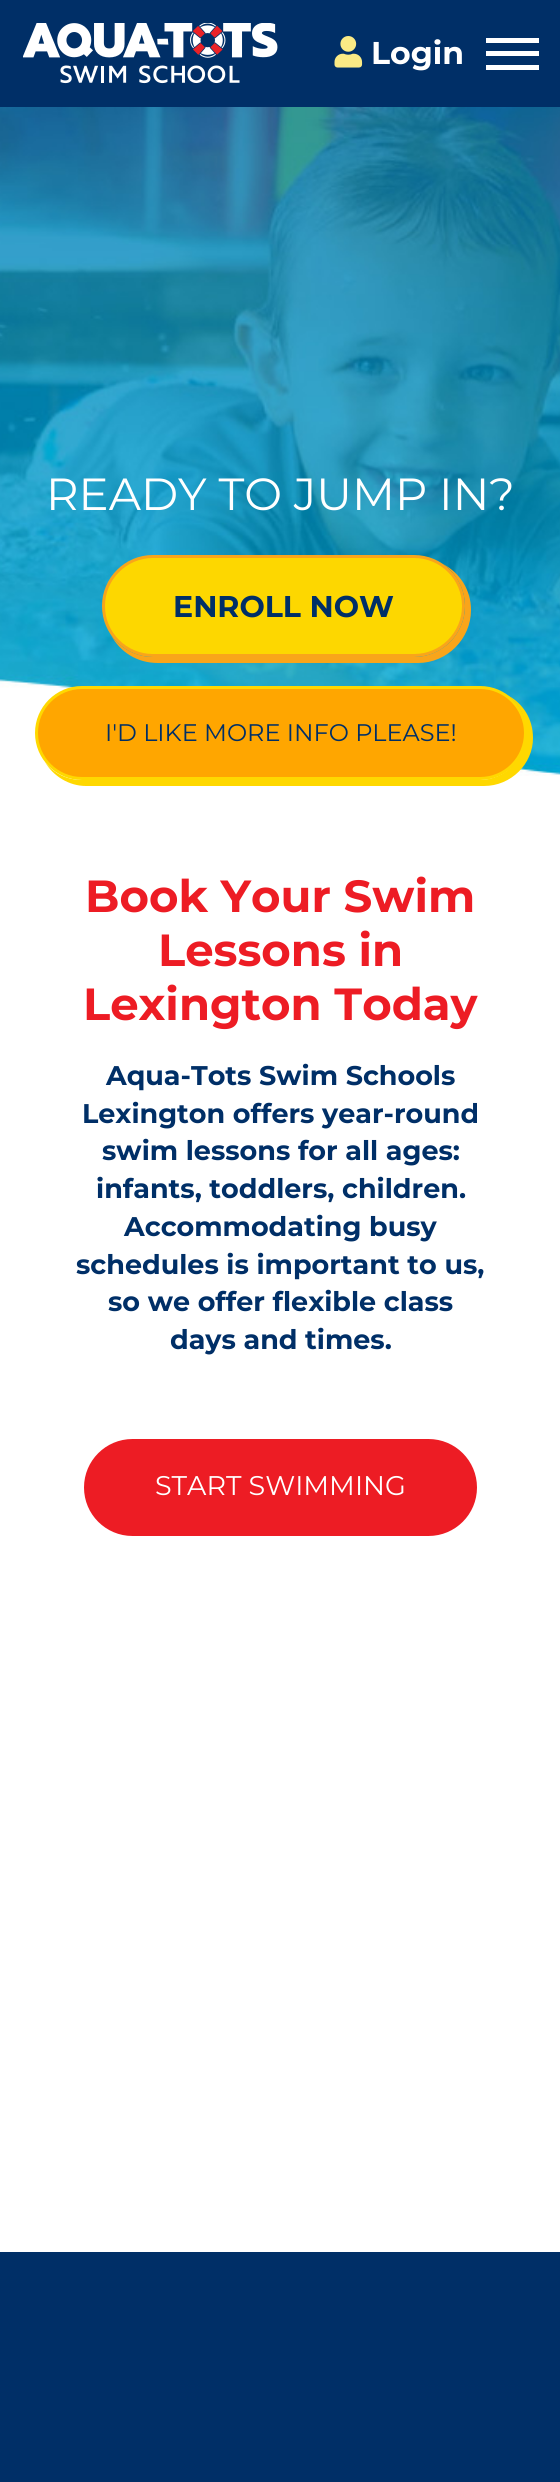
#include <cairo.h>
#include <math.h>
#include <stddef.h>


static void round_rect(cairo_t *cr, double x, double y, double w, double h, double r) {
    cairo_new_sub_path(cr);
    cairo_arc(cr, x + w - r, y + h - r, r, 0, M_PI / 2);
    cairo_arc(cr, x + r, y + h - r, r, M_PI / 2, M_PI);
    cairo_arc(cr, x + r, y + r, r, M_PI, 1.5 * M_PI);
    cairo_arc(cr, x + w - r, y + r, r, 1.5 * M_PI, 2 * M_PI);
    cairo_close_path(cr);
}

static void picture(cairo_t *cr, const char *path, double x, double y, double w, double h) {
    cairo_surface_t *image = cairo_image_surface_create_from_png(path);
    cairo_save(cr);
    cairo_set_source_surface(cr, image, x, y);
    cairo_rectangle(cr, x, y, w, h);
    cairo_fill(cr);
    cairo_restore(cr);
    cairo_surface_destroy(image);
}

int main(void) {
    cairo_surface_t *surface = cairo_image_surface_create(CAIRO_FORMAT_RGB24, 560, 2482);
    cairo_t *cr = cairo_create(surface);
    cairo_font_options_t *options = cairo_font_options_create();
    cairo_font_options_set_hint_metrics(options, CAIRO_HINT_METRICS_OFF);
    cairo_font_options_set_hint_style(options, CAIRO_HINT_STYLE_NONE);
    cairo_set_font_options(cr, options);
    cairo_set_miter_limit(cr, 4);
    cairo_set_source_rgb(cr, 1, 1, 1);
    cairo_paint(cr);
    cairo_set_source_rgb(cr, 0, 0.184, 0.404);
    cairo_rectangle(cr, 0, 0, 560, 107);
    cairo_fill(cr);
    picture(cr, "img1.png", 23, 23, 255, 61);
    picture(cr, "img2.png", 334, 36, 29, 32);
    cairo_select_font_face(cr, "Montserrat", CAIRO_FONT_SLANT_NORMAL, CAIRO_FONT_WEIGHT_BOLD);
    cairo_set_font_size(cr, 31.5);
    cairo_set_source_rgb(cr, 1, 1, 1);
    cairo_move_to(cr, 371, 64);
    cairo_show_text(cr, "Login");
    cairo_rectangle(cr, 486, 38, 53, 5);
    cairo_fill(cr);
    cairo_rectangle(cr, 486, 51, 53, 5);
    cairo_fill(cr);
    cairo_rectangle(cr, 486, 65, 53, 5);
    cairo_fill(cr);
    picture(cr, "img3.png", 0, 107, 560, 669);
    cairo_select_font_face(cr, "Montserrat", CAIRO_FONT_SLANT_NORMAL, CAIRO_FONT_WEIGHT_NORMAL);
    cairo_set_font_size(cr, 45);
    cairo_move_to(cr, 46, 510);
    cairo_show_text(cr, "READY TO JUMP IN?");
    cairo_set_source_rgb(cr, 0.976, 0.647, 0.102);
    cairo_new_path(cr);
    cairo_move_to(cr, 111, 635);
    cairo_curve_to(cr, 120, 652, 137, 663, 158, 663);
    cairo_line_to(cr, 418, 663);
    cairo_curve_to(cr, 447, 663, 471, 639, 471, 610);
    cairo_curve_to(cr, 471, 590, 460, 573, 443, 564);
    cairo_curve_to(cr, 456, 573, 465, 589, 465, 606);
    cairo_curve_to(cr, 465, 634, 442, 657, 414, 657);
    cairo_line_to(cr, 153, 657);
    cairo_curve_to(cr, 136, 657, 120, 648, 111, 635);
    cairo_close_path(cr);
    cairo_fill(cr);
    cairo_set_source_rgb(cr, 0.992, 0.843, 0);
    round_rect(cr, 103.5, 556.5, 360, 99, 49.5);
    cairo_fill_preserve(cr);
    cairo_set_source_rgb(cr, 0.976, 0.647, 0.102);
    cairo_set_line_width(cr, 3);
    cairo_stroke(cr);
    cairo_select_font_face(cr, "Montserrat", CAIRO_FONT_SLANT_NORMAL, CAIRO_FONT_WEIGHT_BOLD);
    cairo_set_font_size(cr, 30);
    cairo_set_source_rgb(cr, 0, 0.184, 0.404);
    cairo_move_to(cr, 173, 617);
    cairo_show_text(cr, "ENROLL NOW");
    cairo_set_source_rgb(cr, 1, 0.847, 0);
    cairo_new_path(cr);
    cairo_move_to(cr, 45, 762);
    cairo_curve_to(cr, 53, 776, 69, 786, 86, 786);
    cairo_line_to(cr, 484, 786);
    cairo_curve_to(cr, 511, 786, 533, 764, 533, 738);
    cairo_curve_to(cr, 533, 719, 523, 703, 507, 695);
    cairo_curve_to(cr, 519, 703, 526, 717, 526, 733);
    cairo_curve_to(cr, 526, 759, 505, 780, 479, 780);
    cairo_line_to(cr, 82, 780);
    cairo_curve_to(cr, 67, 780, 53, 773, 45, 762);
    cairo_close_path(cr);
    cairo_fill(cr);
    cairo_set_source_rgb(cr, 1, 0.651, 0);
    round_rect(cr, 36.5, 687.5, 489, 91, 45.5);
    cairo_fill_preserve(cr);
    cairo_set_source_rgb(cr, 1, 0.847, 0);
    cairo_stroke(cr);
    cairo_select_font_face(cr, "Montserrat", CAIRO_FONT_SLANT_NORMAL, CAIRO_FONT_WEIGHT_NORMAL);
    cairo_set_font_size(cr, 24);
    cairo_set_source_rgb(cr, 0, 0.184, 0.404);
    cairo_move_to(cr, 105, 741);
    cairo_show_text(cr, "I'D LIKE MORE INFO PLEASE!");
    cairo_select_font_face(cr, "Montserrat", CAIRO_FONT_SLANT_NORMAL, CAIRO_FONT_WEIGHT_BOLD);
    cairo_set_font_size(cr, 45);
    cairo_set_source_rgb(cr, 0.929, 0.11, 0.141);
    cairo_move_to(cr, 85, 912);
    cairo_show_text(cr, "Book Your Swim");
    cairo_move_to(cr, 158, 966);
    cairo_show_text(cr, "Lessons in");
    cairo_move_to(cr, 83, 1020);
    cairo_show_text(cr, "Lexington Today");
    cairo_set_font_size(cr, 27);
    cairo_set_source_rgb(cr, 0, 0.184, 0.404);
    cairo_move_to(cr, 106, 1085);
    cairo_show_text(cr, "Aqua-Tots Swim Schools");
    cairo_move_to(cr, 82, 1123);
    cairo_show_text(cr, "Lexington offers year-round");
    cairo_move_to(cr, 102, 1160);
    cairo_show_text(cr, "swim lessons for all ages:");
    cairo_move_to(cr, 96, 1198);
    cairo_show_text(cr, "infants, toddlers, children.");
    cairo_move_to(cr, 124, 1236);
    cairo_show_text(cr, "Accommodating busy");
    cairo_move_to(cr, 76, 1274);
    cairo_show_text(cr, "schedules is important to us,");
    cairo_move_to(cr, 108, 1311);
    cairo_show_text(cr, "so we offer flexible class");
    cairo_move_to(cr, 170, 1349);
    cairo_show_text(cr, "days and times.");
    cairo_set_source_rgb(cr, 0.929, 0.11, 0.141);
    round_rect(cr, 85.5, 1440.5, 390, 94, 47);
    cairo_fill_preserve(cr);
    cairo_stroke(cr);
    cairo_select_font_face(cr, "Montserrat", CAIRO_FONT_SLANT_NORMAL, CAIRO_FONT_WEIGHT_NORMAL);
    cairo_set_source_rgb(cr, 1, 1, 1);
    cairo_move_to(cr, 155, 1495);
    cairo_show_text(cr, "START SWIMMING");
    cairo_set_source_rgb(cr, 0, 0.184, 0.404);
    cairo_rectangle(cr, 0, 2252, 560, 230);
    cairo_fill(cr);
    cairo_surface_write_to_png(surface, "page.png");
    cairo_font_options_destroy(options);
    cairo_destroy(cr);
    cairo_surface_destroy(surface);
    return 0;
}
